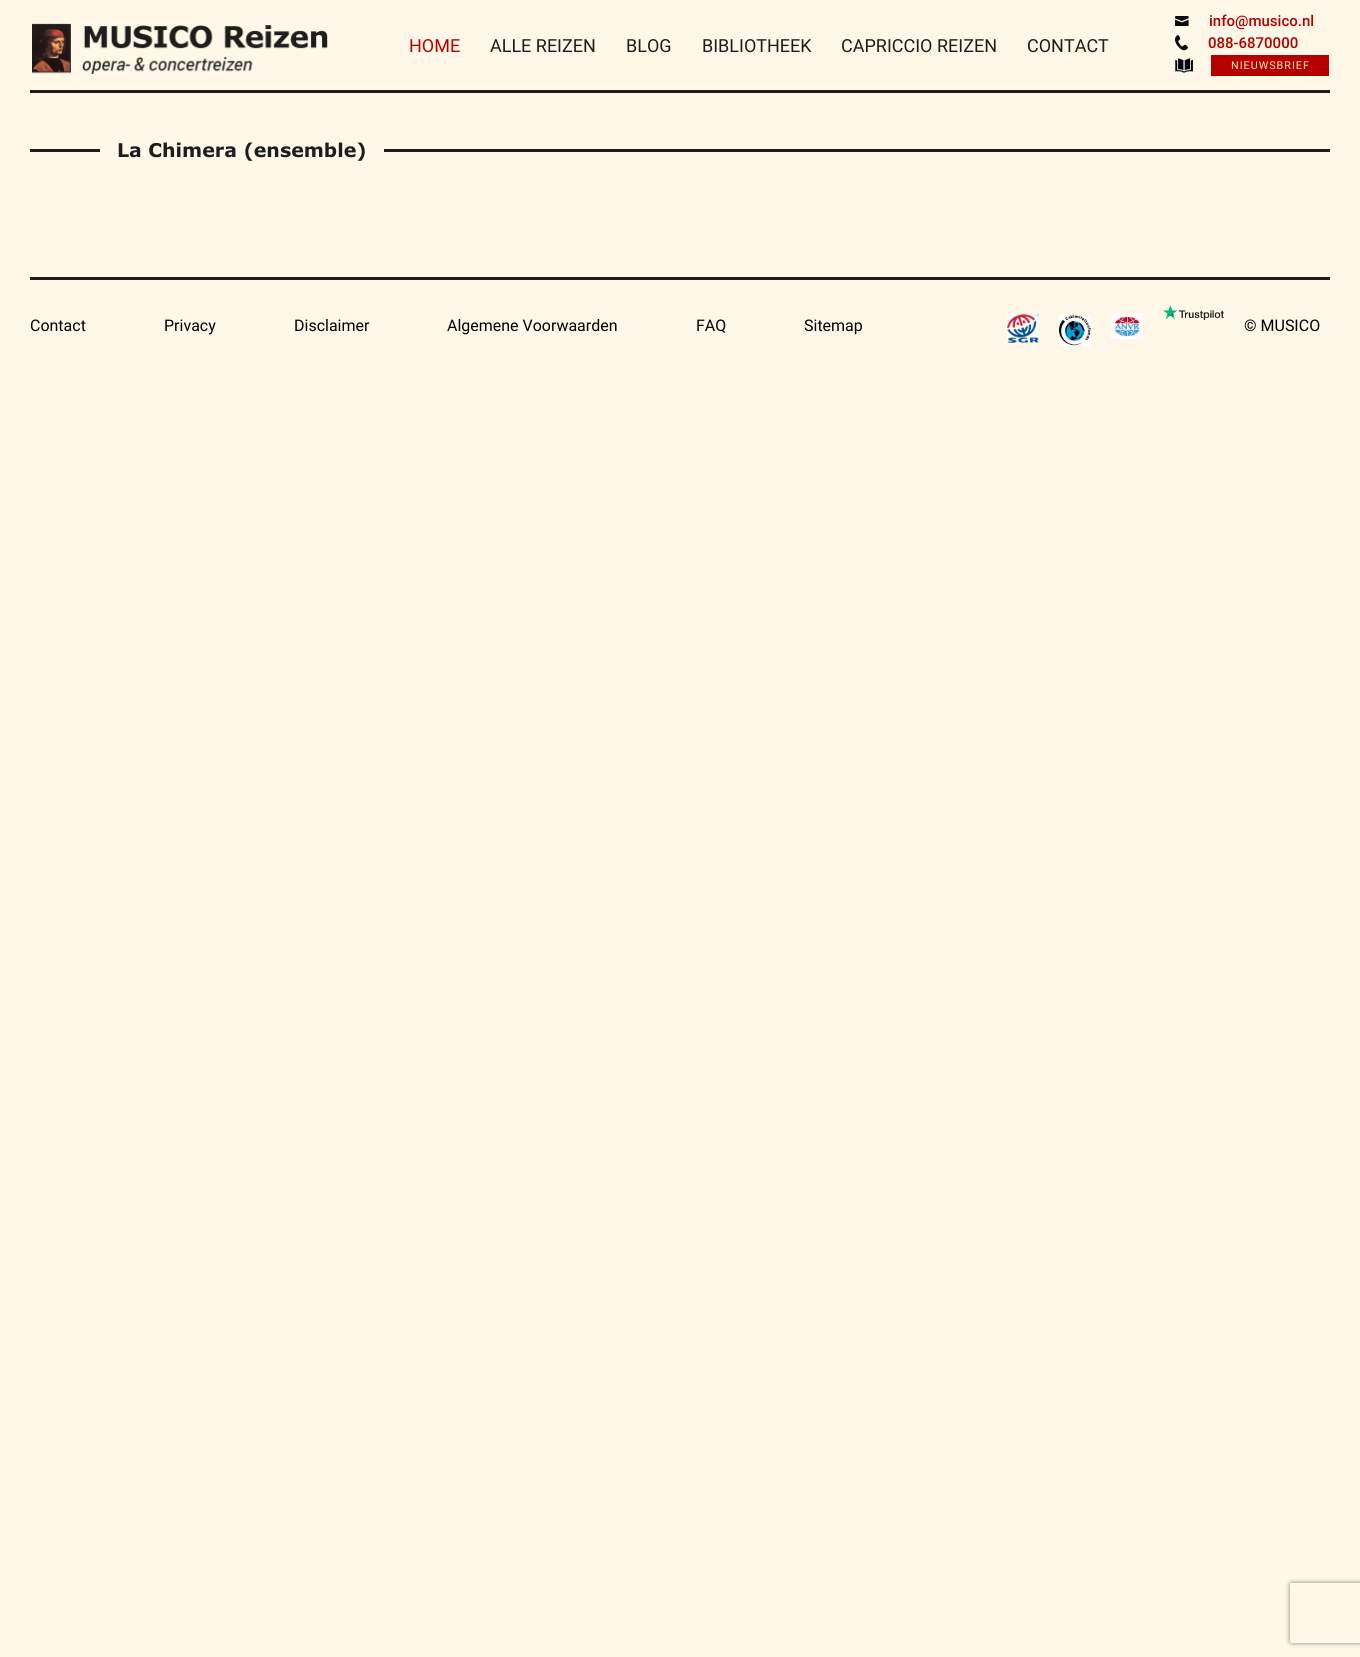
#include <cairo.h>
#include <math.h>
#include <stddef.h>


static void spaced_text(cairo_t *cr, double x, double y, const char *s, double letter, double word) {
    cairo_move_to(cr, x, y);
    while (*s) {
        char ch[5] = {0};
        int n = 0;
        do ch[n++] = *s++; while ((*s & 0xC0) == 0x80);
        cairo_show_text(cr, ch);
        cairo_rel_move_to(cr, letter + word * (*ch == ' '), 0);
    }
}

static void round_rect(cairo_t *cr, double x, double y, double w, double h, double r) {
    cairo_new_sub_path(cr);
    cairo_arc(cr, x + w - r, y + h - r, r, 0, M_PI / 2);
    cairo_arc(cr, x + r, y + h - r, r, M_PI / 2, M_PI);
    cairo_arc(cr, x + r, y + r, r, M_PI, 1.5 * M_PI);
    cairo_arc(cr, x + w - r, y + r, r, 1.5 * M_PI, 2 * M_PI);
    cairo_close_path(cr);
}

static void shadow(cairo_t *cr, double x, double y, double w, double h, double r, double blur, double alpha) {
    cairo_push_group_with_content(cr, CAIRO_CONTENT_ALPHA);
    cairo_set_operator(cr, CAIRO_OPERATOR_SOURCE);
    for (int i = 15; i >= -15 && fmin(w, h) + blur * i / 3 > 0; i -= 2) {
        double e = blur * i / 6;
        cairo_set_source_rgba(cr, 0, 0, 0, alpha * erfc((i - 1) / 8.5) / 2);
        round_rect(cr, x - e, y - e, w + 2 * e, h + 2 * e, fmax(0, fmin(r + e + blur * .6, fmin(w, h) / 2 + e)));
        cairo_fill(cr);
    }
    cairo_pattern_t *soft = cairo_pop_group(cr);
    cairo_mask(cr, soft);
    cairo_pattern_destroy(soft);
}

static void picture(cairo_t *cr, const char *path, double x, double y, double w, double h) {
    cairo_surface_t *image = cairo_image_surface_create_from_png(path);
    cairo_save(cr);
    cairo_set_source_surface(cr, image, x, y);
    cairo_rectangle(cr, x, y, w, h);
    cairo_fill(cr);
    cairo_restore(cr);
    cairo_surface_destroy(image);
}

int main(void) {
    cairo_surface_t *surface = cairo_image_surface_create(CAIRO_FORMAT_RGB24, 1360, 1657);
    cairo_t *cr = cairo_create(surface);
    cairo_font_options_t *options = cairo_font_options_create();
    cairo_font_options_set_hint_metrics(options, CAIRO_HINT_METRICS_OFF);
    cairo_font_options_set_hint_style(options, CAIRO_HINT_STYLE_NONE);
    cairo_set_font_options(cr, options);
    cairo_set_miter_limit(cr, 4);
    cairo_set_source_rgb(cr, 1, 0.969, 0.91);
    cairo_paint(cr);
    cairo_set_source_rgb(cr, 0.114, 0.114, 0.106);
    cairo_rectangle(cr, 30, 90, 1300, 3);
    cairo_fill(cr);
    picture(cr, "img1.png", 32, 23, 296, 51);
    cairo_select_font_face(cr, "Roboto", CAIRO_FONT_SLANT_NORMAL, CAIRO_FONT_WEIGHT_NORMAL);
    cairo_set_font_size(cr, 18);
    cairo_set_source_rgb(cr, 0.714, 0, 0);
    cairo_move_to(cr, 409, 52);
    cairo_show_text(cr, "HOME");
    cairo_set_source_rgb(cr, 0.114, 0.114, 0.106);
    cairo_move_to(cr, 490, 52);
    cairo_show_text(cr, "ALLE REIZEN");
    cairo_move_to(cr, 626, 52);
    cairo_show_text(cr, "BLOG");
    cairo_move_to(cr, 702, 52);
    cairo_show_text(cr, "BIBLIOTHEEK");
    cairo_move_to(cr, 841, 52);
    cairo_show_text(cr, "CAPRICCIO REIZEN");
    cairo_move_to(cr, 1027, 52);
    cairo_show_text(cr, "CONTACT");
    picture(cr, "img2.png", 1175, 16, 14, 10);
    cairo_select_font_face(cr, "Roboto Medium", CAIRO_FONT_SLANT_NORMAL, CAIRO_FONT_WEIGHT_NORMAL);
    cairo_set_font_size(cr, 15);
    cairo_set_source_rgb(cr, 0.714, 0, 0);
    cairo_move_to(cr, 1209, 26);
    cairo_show_text(cr, "info@musico.nl");
    picture(cr, "img3.png", 1175, 35, 13, 16);
    cairo_move_to(cr, 1208, 48);
    cairo_show_text(cr, "088-6870000");
    picture(cr, "img4.png", 1175, 58, 19, 15);
    cairo_rectangle(cr, 1211, 55, 118, 21);
    cairo_fill(cr);
    cairo_select_font_face(cr, "Roboto", CAIRO_FONT_SLANT_NORMAL, CAIRO_FONT_WEIGHT_NORMAL);
    cairo_set_font_size(cr, 10.75);
    cairo_set_source_rgb(cr, 0.988, 0.922, 0.725);
    spaced_text(cr, 1231, 69, "NIEUWSBRIEF", 1, 0);
    cairo_set_source_rgb(cr, 0.114, 0.114, 0.106);
    cairo_rectangle(cr, 30, 149, 1300, 3);
    cairo_fill(cr);
    cairo_set_source_rgb(cr, 1, 0.969, 0.91);
    cairo_rectangle(cr, 100, 149, 284, 3);
    cairo_fill(cr);
    cairo_select_font_face(cr, "Verdana", CAIRO_FONT_SLANT_NORMAL, CAIRO_FONT_WEIGHT_BOLD);
    cairo_set_font_size(cr, 19);
    cairo_set_source_rgb(cr, 0.114, 0.114, 0.106);
    cairo_move_to(cr, 117, 157);
    cairo_show_text(cr, "La Chimera (ensemble)");
    cairo_rectangle(cr, 30, 277, 1300, 3);
    cairo_fill(cr);
    picture(cr, "img5.png", 1163, 305, 61, 15);
    cairo_select_font_face(cr, "Roboto", CAIRO_FONT_SLANT_NORMAL, CAIRO_FONT_WEIGHT_NORMAL);
    cairo_set_font_size(cr, 16);
    cairo_set_source_rgb(cr, 0, 0, 0);
    cairo_move_to(cr, 30, 331);
    cairo_show_text(cr, "Contact");
    cairo_move_to(cr, 164, 331);
    cairo_show_text(cr, "Privacy");
    cairo_move_to(cr, 294, 331);
    cairo_show_text(cr, "Disclaimer");
    cairo_move_to(cr, 447, 331);
    cairo_show_text(cr, "Algemene Voorwaarden");
    cairo_move_to(cr, 696, 331);
    cairo_show_text(cr, "FAQ");
    cairo_move_to(cr, 804, 331);
    cairo_show_text(cr, "Sitemap");
    picture(cr, "img6.png", 1007, 314, 32, 29);
    picture(cr, "img7.png", 1059, 314, 32, 32);
    picture(cr, "img8.png", 1111, 314, 32, 25);
    cairo_move_to(cr, 1244, 331);
    cairo_show_text(cr, "© MUSICO");
    cairo_save(cr);
    cairo_set_fill_rule(cr, CAIRO_FILL_RULE_EVEN_ODD);
    cairo_new_path(cr);
    cairo_move_to(cr, 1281, 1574);
    cairo_line_to(cr, 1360, 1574);
    cairo_line_to(cr, 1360, 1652);
    cairo_line_to(cr, 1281, 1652);
    cairo_close_path(cr);
    cairo_move_to(cr, 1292, 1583);
    cairo_line_to(cr, 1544, 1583);
    cairo_curve_to(cr, 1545, 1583, 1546, 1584, 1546, 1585);
    cairo_line_to(cr, 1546, 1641);
    cairo_curve_to(cr, 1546, 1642, 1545, 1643, 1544, 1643);
    cairo_line_to(cr, 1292, 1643);
    cairo_curve_to(cr, 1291, 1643, 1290, 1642, 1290, 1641);
    cairo_line_to(cr, 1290, 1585);
    cairo_curve_to(cr, 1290, 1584, 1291, 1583, 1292, 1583);
    cairo_close_path(cr);
    cairo_clip(cr);
    cairo_set_source_rgb(cr, 0.502, 0.502, 0.502);
    shadow(cr, 1290, 1583, 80, 60, 2, 2.5, 1);
    cairo_restore(cr);
    cairo_surface_write_to_png(surface, "page.png");
    cairo_font_options_destroy(options);
    cairo_destroy(cr);
    cairo_surface_destroy(surface);
    return 0;
}
